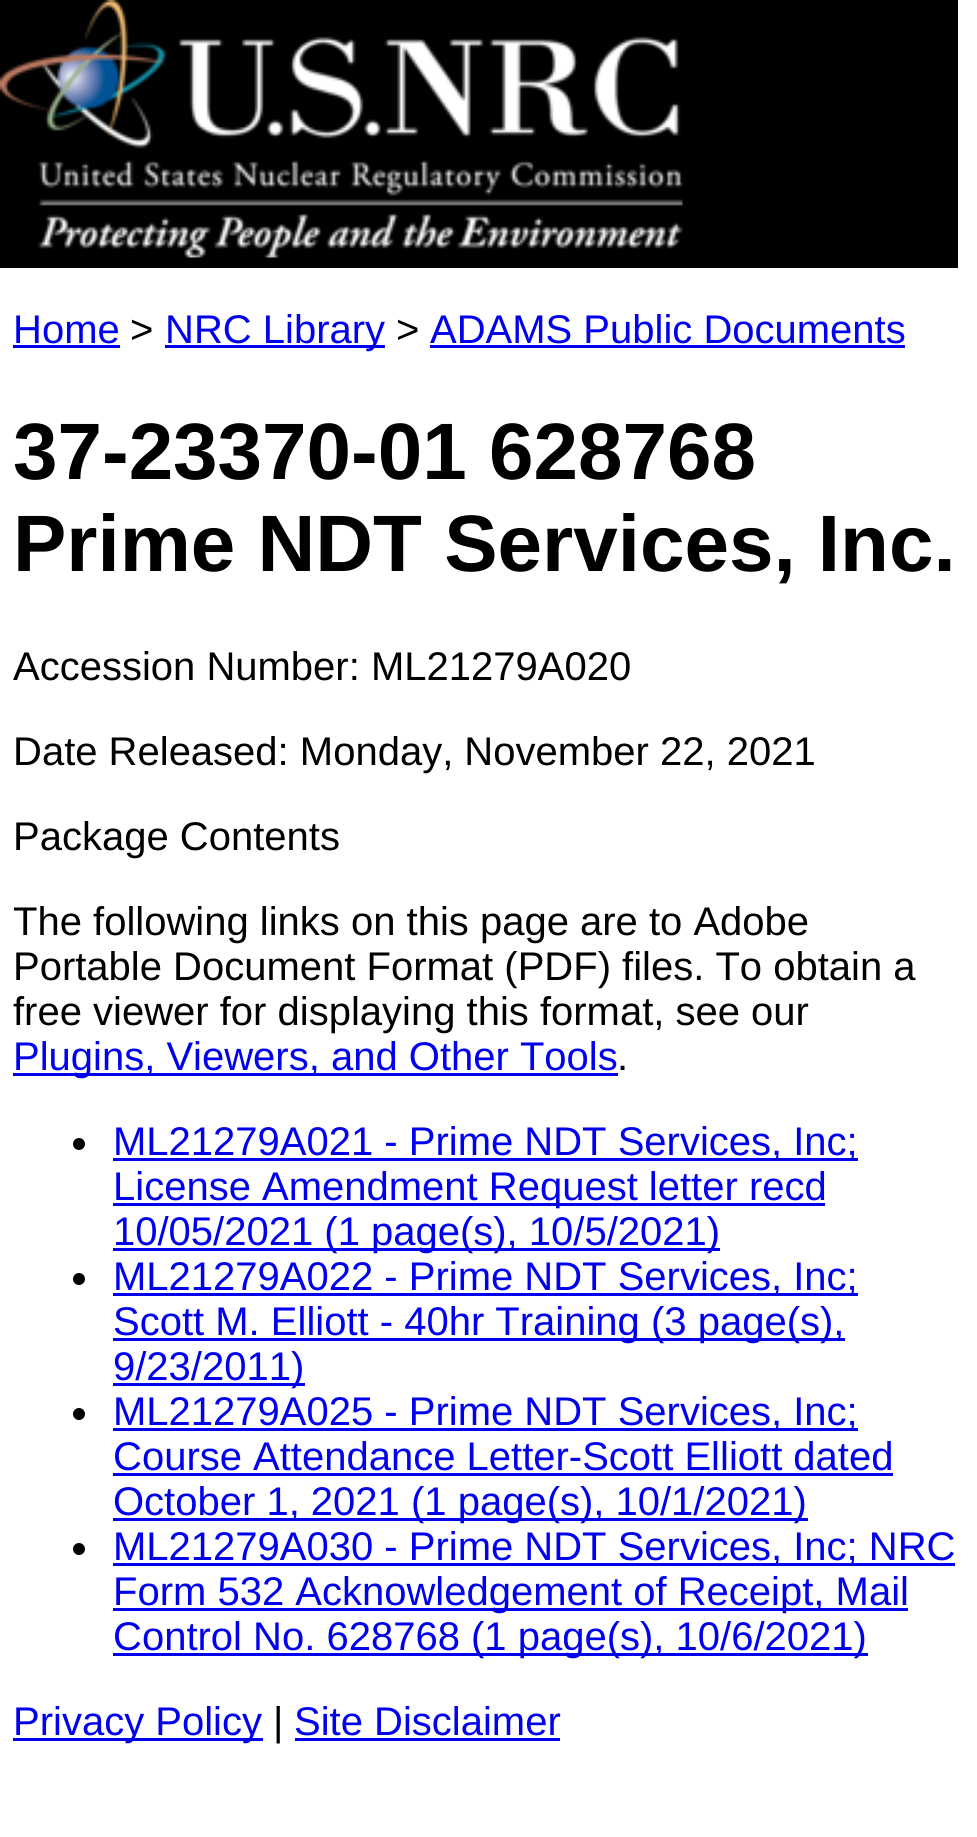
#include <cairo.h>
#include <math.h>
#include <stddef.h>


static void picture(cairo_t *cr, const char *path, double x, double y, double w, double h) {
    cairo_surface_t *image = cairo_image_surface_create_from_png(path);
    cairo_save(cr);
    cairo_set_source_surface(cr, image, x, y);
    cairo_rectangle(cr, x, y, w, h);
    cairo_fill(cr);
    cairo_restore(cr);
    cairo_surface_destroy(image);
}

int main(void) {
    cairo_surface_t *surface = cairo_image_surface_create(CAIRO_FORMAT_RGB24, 977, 1837);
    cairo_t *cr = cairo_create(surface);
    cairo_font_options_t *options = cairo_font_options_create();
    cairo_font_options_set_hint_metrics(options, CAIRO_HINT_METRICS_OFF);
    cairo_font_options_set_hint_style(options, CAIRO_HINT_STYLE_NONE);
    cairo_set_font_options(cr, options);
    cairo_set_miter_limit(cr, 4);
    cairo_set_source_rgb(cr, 1, 1, 1);
    cairo_paint(cr);
    cairo_set_source_rgb(cr, 0, 0, 0);
    cairo_rectangle(cr, 0, 0, 958, 268);
    cairo_fill(cr);
    picture(cr, "img1.png", 0, 0, 683, 258);
    cairo_select_font_face(cr, "Liberation Sans", CAIRO_FONT_SLANT_NORMAL, CAIRO_FONT_WEIGHT_NORMAL);
    cairo_set_font_size(cr, 40);
    cairo_set_source_rgb(cr, 0, 0, 0.933);
    cairo_move_to(cr, 13, 343);
    cairo_show_text(cr, "Home");
    cairo_rectangle(cr, 13, 345, 107, 3);
    cairo_fill(cr);
    cairo_set_source_rgb(cr, 0, 0, 0);
    cairo_move_to(cr, 130, 343);
    cairo_show_text(cr, ">");
    cairo_set_source_rgb(cr, 0, 0, 0.933);
    cairo_rectangle(cr, 165, 345, 220, 3);
    cairo_fill(cr);
    cairo_move_to(cr, 165, 343);
    cairo_show_text(cr, "NRC Library");
    cairo_set_source_rgb(cr, 0, 0, 0);
    cairo_move_to(cr, 396, 343);
    cairo_show_text(cr, ">");
    cairo_set_source_rgb(cr, 0, 0, 0.933);
    cairo_move_to(cr, 430, 343);
    cairo_show_text(cr, "ADAMS Public Documents");
    cairo_rectangle(cr, 430, 345, 475, 3);
    cairo_fill(cr);
    cairo_select_font_face(cr, "Liberation Sans", CAIRO_FONT_SLANT_NORMAL, CAIRO_FONT_WEIGHT_BOLD);
    cairo_set_font_size(cr, 80);
    cairo_set_source_rgb(cr, 0, 0, 0);
    cairo_move_to(cr, 13, 479);
    cairo_show_text(cr, "37-23370-01 628768");
    cairo_move_to(cr, 13, 571);
    cairo_show_text(cr, "Prime NDT Services, Inc.");
    cairo_select_font_face(cr, "Liberation Sans", CAIRO_FONT_SLANT_NORMAL, CAIRO_FONT_WEIGHT_NORMAL);
    cairo_set_font_size(cr, 40);
    cairo_move_to(cr, 13, 680);
    cairo_show_text(cr, "Accession Number: ML21279A020");
    cairo_move_to(cr, 13, 765);
    cairo_show_text(cr, "Date Released: Monday, November 22, 2021");
    cairo_move_to(cr, 13, 850);
    cairo_show_text(cr, "Package Contents");
    cairo_move_to(cr, 13, 935);
    cairo_show_text(cr, "The following links on this page are to Adobe");
    cairo_move_to(cr, 13, 980);
    cairo_show_text(cr, "Portable Document Format (PDF) files. To obtain a");
    cairo_move_to(cr, 13, 1025);
    cairo_show_text(cr, "free viewer for displaying this format, see our");
    cairo_set_source_rgb(cr, 0, 0, 0.933);
    cairo_rectangle(cr, 13, 1073, 605, 3);
    cairo_fill(cr);
    cairo_move_to(cr, 13, 1070);
    cairo_show_text(cr, "Plugins, Viewers, and Other Tools");
    cairo_set_source_rgb(cr, 0, 0, 0);
    cairo_move_to(cr, 617, 1070);
    cairo_show_text(cr, ".");
    cairo_new_path(cr);
    cairo_arc(cr, 79, 1144, 6, 0, 2 * M_PI);
    cairo_fill(cr);
    cairo_set_source_rgb(cr, 0, 0, 0.933);
    cairo_rectangle(cr, 113, 1158, 745, 3);
    cairo_fill(cr);
    cairo_move_to(cr, 113, 1155);
    cairo_show_text(cr, "ML21279A021 - Prime NDT Services, Inc;");
    cairo_rectangle(cr, 113, 1203, 712, 3);
    cairo_fill(cr);
    cairo_move_to(cr, 113, 1200);
    cairo_show_text(cr, "License Amendment Request letter recd");
    cairo_rectangle(cr, 113, 1248, 607, 3);
    cairo_fill(cr);
    cairo_move_to(cr, 113, 1245);
    cairo_show_text(cr, "10/05/2021 (1 page(s), 10/5/2021)");
    cairo_set_source_rgb(cr, 0, 0, 0);
    cairo_new_path(cr);
    cairo_arc(cr, 79, 1279, 6, 0, 2 * M_PI);
    cairo_fill(cr);
    cairo_set_source_rgb(cr, 0, 0, 0.933);
    cairo_rectangle(cr, 113, 1293, 745, 3);
    cairo_fill(cr);
    cairo_move_to(cr, 113, 1290);
    cairo_show_text(cr, "ML21279A022 - Prime NDT Services, Inc;");
    cairo_rectangle(cr, 113, 1338, 732, 3);
    cairo_fill(cr);
    cairo_move_to(cr, 113, 1335);
    cairo_show_text(cr, "Scott M. Elliott - 40hr Training (3 page(s),");
    cairo_rectangle(cr, 113, 1383, 192, 3);
    cairo_fill(cr);
    cairo_move_to(cr, 113, 1380);
    cairo_show_text(cr, "9/23/2011)");
    cairo_set_source_rgb(cr, 0, 0, 0);
    cairo_new_path(cr);
    cairo_arc(cr, 79, 1414, 6, 0, 2 * M_PI);
    cairo_fill(cr);
    cairo_set_source_rgb(cr, 0, 0, 0.933);
    cairo_rectangle(cr, 113, 1428, 745, 3);
    cairo_fill(cr);
    cairo_move_to(cr, 113, 1425);
    cairo_show_text(cr, "ML21279A025 - Prime NDT Services, Inc;");
    cairo_move_to(cr, 113, 1470);
    cairo_show_text(cr, "Course Attendance Letter-Scott Elliott dated");
    cairo_rectangle(cr, 113, 1473, 780, 3);
    cairo_fill(cr);
    cairo_rectangle(cr, 113, 1518, 695, 3);
    cairo_fill(cr);
    cairo_move_to(cr, 113, 1515);
    cairo_show_text(cr, "October 1, 2021 (1 page(s), 10/1/2021)");
    cairo_set_source_rgb(cr, 0, 0, 0);
    cairo_new_path(cr);
    cairo_arc(cr, 79, 1549, 6, 0, 2 * M_PI);
    cairo_fill(cr);
    cairo_set_source_rgb(cr, 0, 0, 0.933);
    cairo_rectangle(cr, 113, 1563, 842, 3);
    cairo_fill(cr);
    cairo_move_to(cr, 113, 1560);
    cairo_show_text(cr, "ML21279A030 - Prime NDT Services, Inc; NRC");
    cairo_rectangle(cr, 113, 1608, 795, 3);
    cairo_fill(cr);
    cairo_move_to(cr, 113, 1605);
    cairo_show_text(cr, "Form 532 Acknowledgement of Receipt, Mail");
    cairo_rectangle(cr, 113, 1653, 755, 3);
    cairo_fill(cr);
    cairo_move_to(cr, 113, 1650);
    cairo_show_text(cr, "Control No. 628768 (1 page(s), 10/6/2021)");
    cairo_rectangle(cr, 13, 1738, 250, 3);
    cairo_fill(cr);
    cairo_move_to(cr, 13, 1735);
    cairo_show_text(cr, "Privacy Policy");
    cairo_set_source_rgb(cr, 0, 0, 0);
    cairo_move_to(cr, 273, 1735);
    cairo_show_text(cr, "|");
    cairo_set_source_rgb(cr, 0, 0, 0.933);
    cairo_move_to(cr, 294, 1735);
    cairo_show_text(cr, "Site Disclaimer");
    cairo_rectangle(cr, 295, 1738, 265, 3);
    cairo_fill(cr);
    cairo_surface_write_to_png(surface, "page.png");
    cairo_font_options_destroy(options);
    cairo_destroy(cr);
    cairo_surface_destroy(surface);
    return 0;
}
